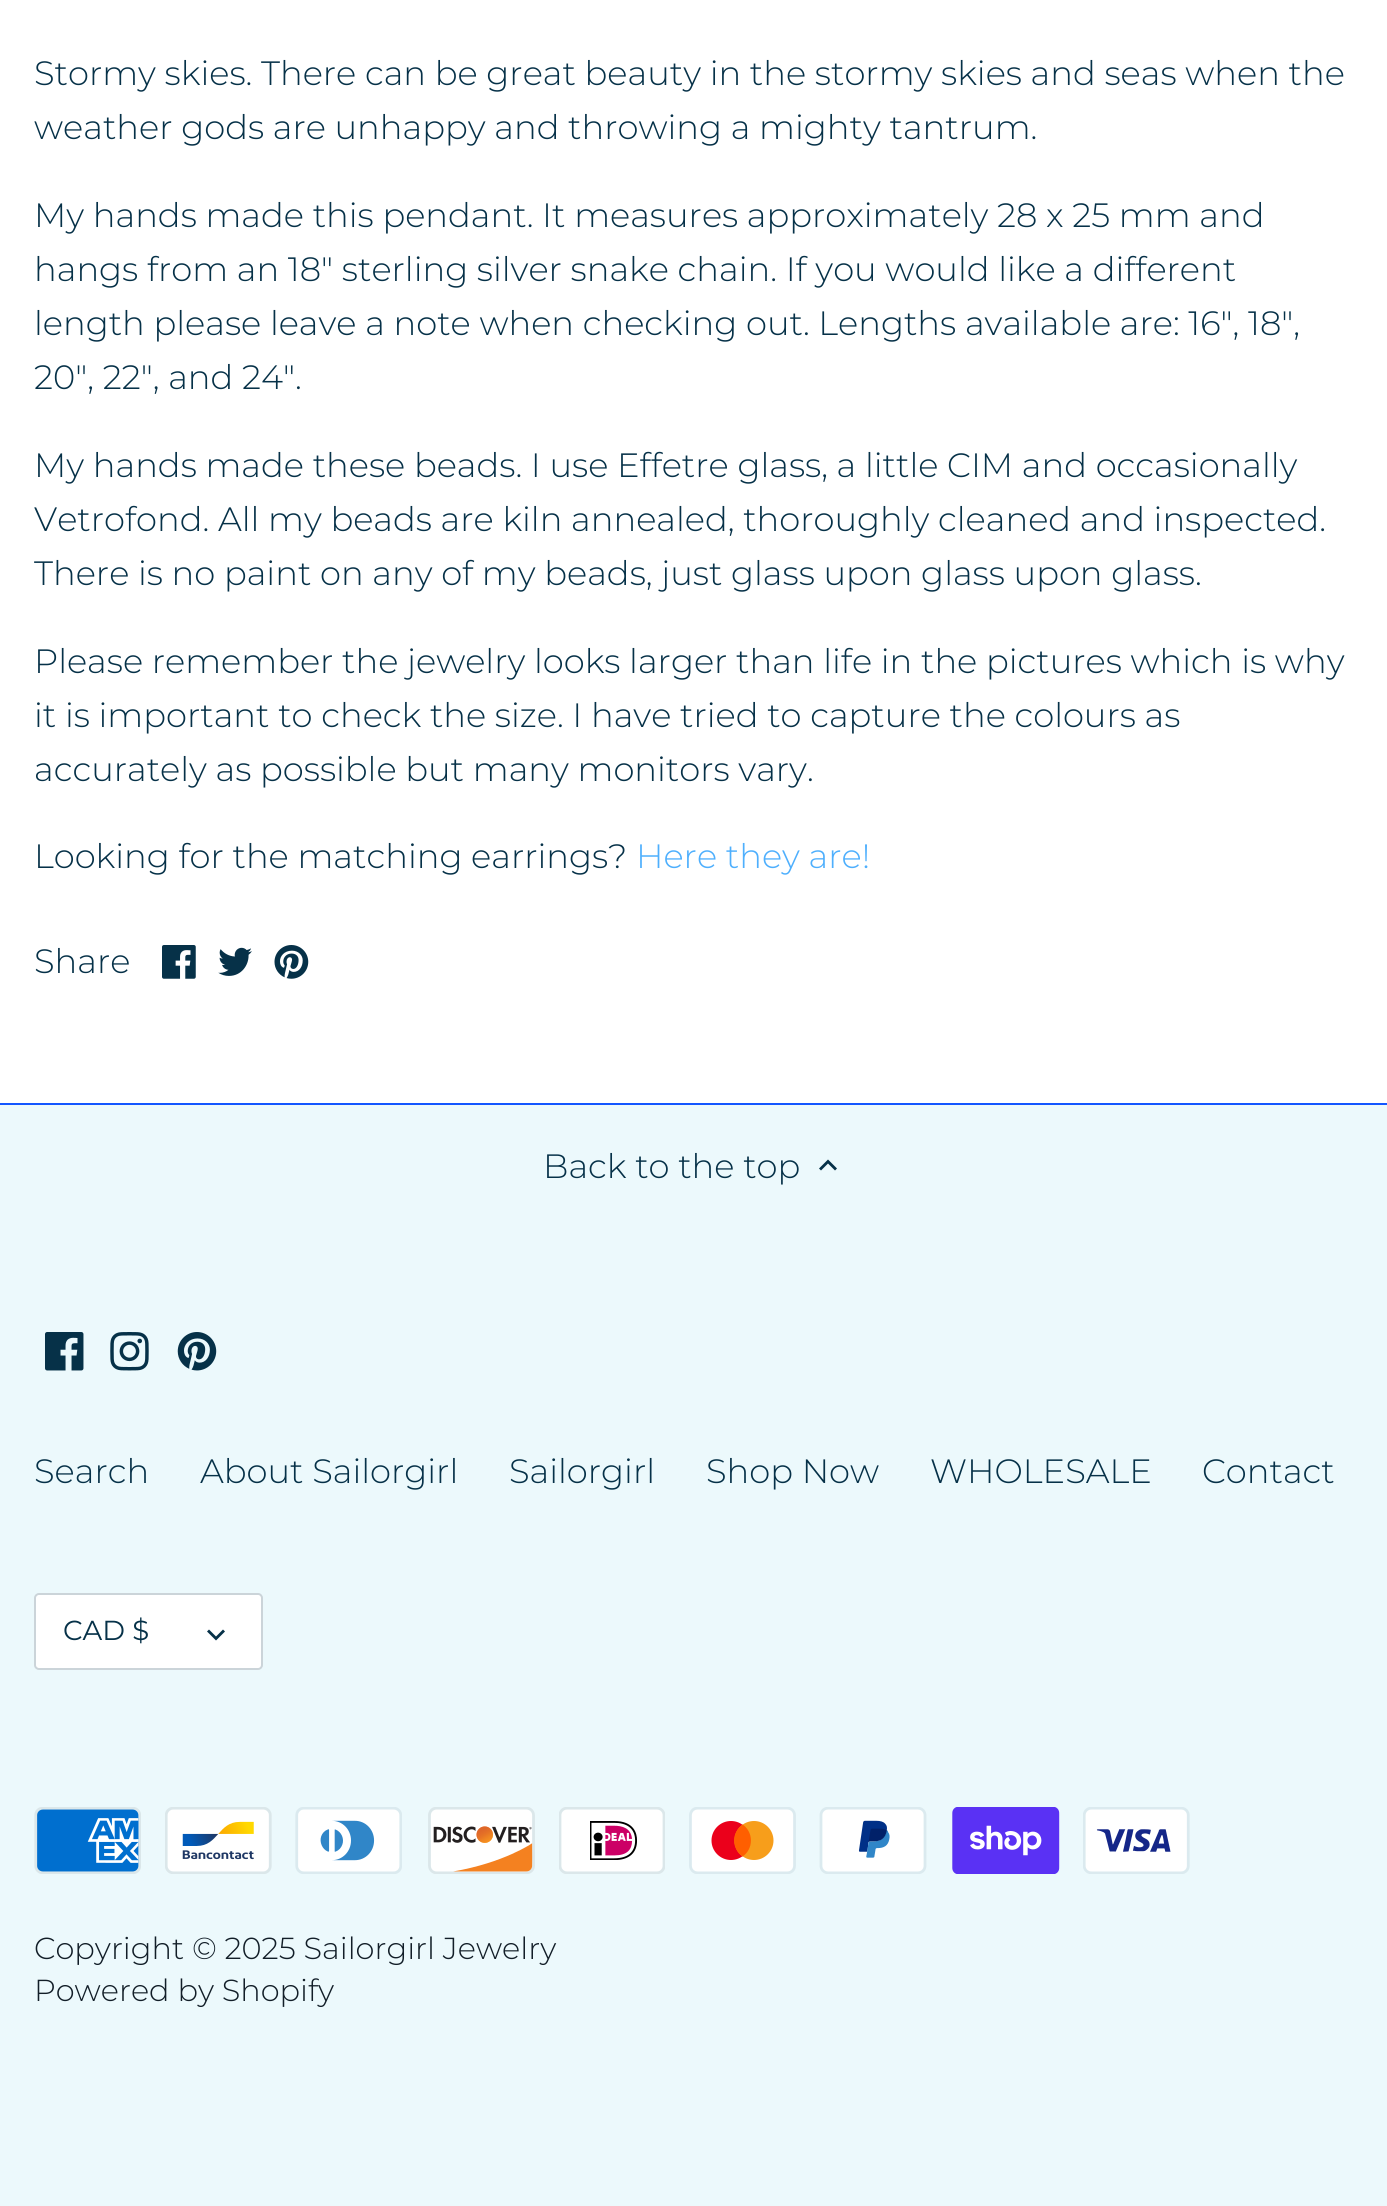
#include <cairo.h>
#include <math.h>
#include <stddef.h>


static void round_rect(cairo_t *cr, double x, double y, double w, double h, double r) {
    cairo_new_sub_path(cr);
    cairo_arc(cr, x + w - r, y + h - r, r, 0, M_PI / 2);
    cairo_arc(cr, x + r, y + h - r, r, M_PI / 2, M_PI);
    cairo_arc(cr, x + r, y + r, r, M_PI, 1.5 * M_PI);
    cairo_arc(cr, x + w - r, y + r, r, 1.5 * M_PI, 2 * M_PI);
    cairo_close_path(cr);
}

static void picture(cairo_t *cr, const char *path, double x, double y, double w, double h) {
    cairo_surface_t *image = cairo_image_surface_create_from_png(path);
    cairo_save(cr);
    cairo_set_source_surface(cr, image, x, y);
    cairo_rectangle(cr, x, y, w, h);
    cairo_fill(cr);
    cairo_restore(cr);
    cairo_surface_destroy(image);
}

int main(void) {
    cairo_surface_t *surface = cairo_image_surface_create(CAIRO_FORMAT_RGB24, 1387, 2206);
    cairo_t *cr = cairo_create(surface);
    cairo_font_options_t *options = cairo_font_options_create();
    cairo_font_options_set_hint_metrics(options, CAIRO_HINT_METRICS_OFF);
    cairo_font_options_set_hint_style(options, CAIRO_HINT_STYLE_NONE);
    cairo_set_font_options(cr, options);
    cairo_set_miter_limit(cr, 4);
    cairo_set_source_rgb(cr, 0.925, 0.976, 0.988);
    cairo_paint(cr);
    cairo_set_source_rgb(cr, 1, 1, 1);
    cairo_rectangle(cr, 0, 0, 1387, 1103);
    cairo_fill(cr);
    cairo_select_font_face(cr, "Montserrat Light", CAIRO_FONT_SLANT_NORMAL, CAIRO_FONT_WEIGHT_NORMAL);
    cairo_set_font_size(cr, 33.75);
    cairo_set_source_rgb(cr, 0.024, 0.192, 0.282);
    cairo_move_to(cr, 34, 85);
    cairo_show_text(cr, "Stormy skies. There can be great beauty in the stormy skies and seas when the");
    cairo_move_to(cr, 34, 139);
    cairo_show_text(cr, "weather gods are unhappy and throwing a mighty tantrum.");
    cairo_move_to(cr, 34, 227);
    cairo_show_text(cr, "My hands made this pendant. It measures approximately 28 x 25 mm and");
    cairo_move_to(cr, 34, 281);
    cairo_show_text(cr, "hangs from an 18\" sterling silver snake chain. If you would like a different");
    cairo_move_to(cr, 34, 335);
    cairo_show_text(cr, "length please leave a note when checking out. Lengths available are: 16\", 18\",");
    cairo_move_to(cr, 34, 389);
    cairo_show_text(cr, "20\", 22\", and 24\".");
    cairo_move_to(cr, 34, 477);
    cairo_show_text(cr, "My hands made these beads. I use Effetre glass, a little CIM and occasionally");
    cairo_move_to(cr, 34, 531);
    cairo_show_text(cr, "Vetrofond. All my beads are kiln annealed, thoroughly cleaned and inspected.");
    cairo_move_to(cr, 34, 585);
    cairo_show_text(cr, "There is no paint on any of my beads, just glass upon glass upon glass.");
    cairo_move_to(cr, 34, 673);
    cairo_show_text(cr, "Please remember the jewelry looks larger than life in the pictures which is why");
    cairo_move_to(cr, 34, 727);
    cairo_show_text(cr, "it is important to check the size. I have tried to capture the colours as");
    cairo_move_to(cr, 34, 781);
    cairo_show_text(cr, "accurately as possible but many monitors vary.");
    cairo_move_to(cr, 34, 868);
    cairo_show_text(cr, "Looking for the matching earrings?");
    cairo_set_source_rgb(cr, 0.306, 0.686, 0.992);
    cairo_move_to(cr, 636, 868);
    cairo_show_text(cr, "Here they are!");
    cairo_set_source_rgb(cr, 0.024, 0.192, 0.282);
    cairo_move_to(cr, 34, 973);
    cairo_show_text(cr, "Share");
    picture(cr, "img1.png", 162, 945, 34, 34);
    picture(cr, "img2.png", 218, 947, 34, 29);
    picture(cr, "img3.png", 274, 945, 35, 34);
    cairo_set_source_rgb(cr, 0.075, 0.337, 1);
    cairo_rectangle(cr, 0, 1103, 1387, 2);
    cairo_fill(cr);
    cairo_set_source_rgb(cr, 0.024, 0.192, 0.282);
    cairo_move_to(cr, 543, 1178);
    cairo_show_text(cr, "Back to the top");
    cairo_new_path(cr);
    cairo_move_to(cr, 821, 1170.5);
    cairo_line_to(cr, 828, 1163.5);
    cairo_line_to(cr, 835, 1170.5);
    cairo_line_to(cr, 837, 1168.5);
    cairo_line_to(cr, 828, 1159.5);
    cairo_line_to(cr, 819, 1168.5);
    cairo_close_path(cr);
    cairo_fill(cr);
    picture(cr, "img4.png", 45, 1332, 39, 39);
    picture(cr, "img5.png", 110, 1332, 39, 39);
    picture(cr, "img6.png", 177, 1332, 40, 39);
    cairo_move_to(cr, 34, 1483);
    cairo_show_text(cr, "Search");
    cairo_move_to(cr, 200, 1483);
    cairo_show_text(cr, "About Sailorgirl");
    cairo_move_to(cr, 509, 1483);
    cairo_show_text(cr, "Sailorgirl");
    cairo_move_to(cr, 706, 1483);
    cairo_show_text(cr, "Shop Now");
    cairo_move_to(cr, 930, 1483);
    cairo_show_text(cr, "WHOLESALE");
    cairo_move_to(cr, 1202, 1483);
    cairo_show_text(cr, "Contact");
    cairo_set_source_rgb(cr, 1, 1, 1);
    round_rect(cr, 35, 1594, 227, 75, 4);
    cairo_fill_preserve(cr);
    cairo_set_source_rgb(cr, 0.796, 0.831, 0.851);
    cairo_stroke(cr);
    cairo_select_font_face(cr, "Montserrat", CAIRO_FONT_SLANT_NORMAL, CAIRO_FONT_WEIGHT_NORMAL);
    cairo_set_font_size(cr, 27.5);
    cairo_set_source_rgb(cr, 0.024, 0.192, 0.282);
    cairo_move_to(cr, 63, 1640);
    cairo_show_text(cr, "CAD $");
    cairo_new_path(cr);
    cairo_move_to(cr, 209, 1629.5);
    cairo_line_to(cr, 216, 1636.5);
    cairo_line_to(cr, 223, 1629.5);
    cairo_line_to(cr, 225, 1631.5);
    cairo_line_to(cr, 216, 1640.5);
    cairo_line_to(cr, 207, 1631.5);
    cairo_close_path(cr);
    cairo_fill(cr);
    picture(cr, "img7.png", 34, 1807, 107, 67);
    picture(cr, "img8.png", 165, 1807, 107, 67);
    picture(cr, "img9.png", 295, 1807, 107, 67);
    picture(cr, "img10.png", 428, 1807, 107, 67);
    picture(cr, "img11.png", 559, 1807, 106, 67);
    picture(cr, "img12.png", 689, 1807, 107, 67);
    picture(cr, "img13.png", 819, 1807, 108, 67);
    picture(cr, "img14.png", 952, 1807, 108, 67);
    picture(cr, "img15.png", 1083, 1807, 107, 67);
    cairo_select_font_face(cr, "Montserrat Light", CAIRO_FONT_SLANT_NORMAL, CAIRO_FONT_WEIGHT_NORMAL);
    cairo_set_font_size(cr, 30.4);
    cairo_set_source_rgb(cr, 0.071, 0.118, 0.157);
    cairo_move_to(cr, 34, 1959);
    cairo_show_text(cr, "Copyright © 2025 Sailorgirl Jewelry");
    cairo_move_to(cr, 34, 2001);
    cairo_show_text(cr, "Powered by Shopify");
    cairo_surface_write_to_png(surface, "page.png");
    cairo_font_options_destroy(options);
    cairo_destroy(cr);
    cairo_surface_destroy(surface);
    return 0;
}
